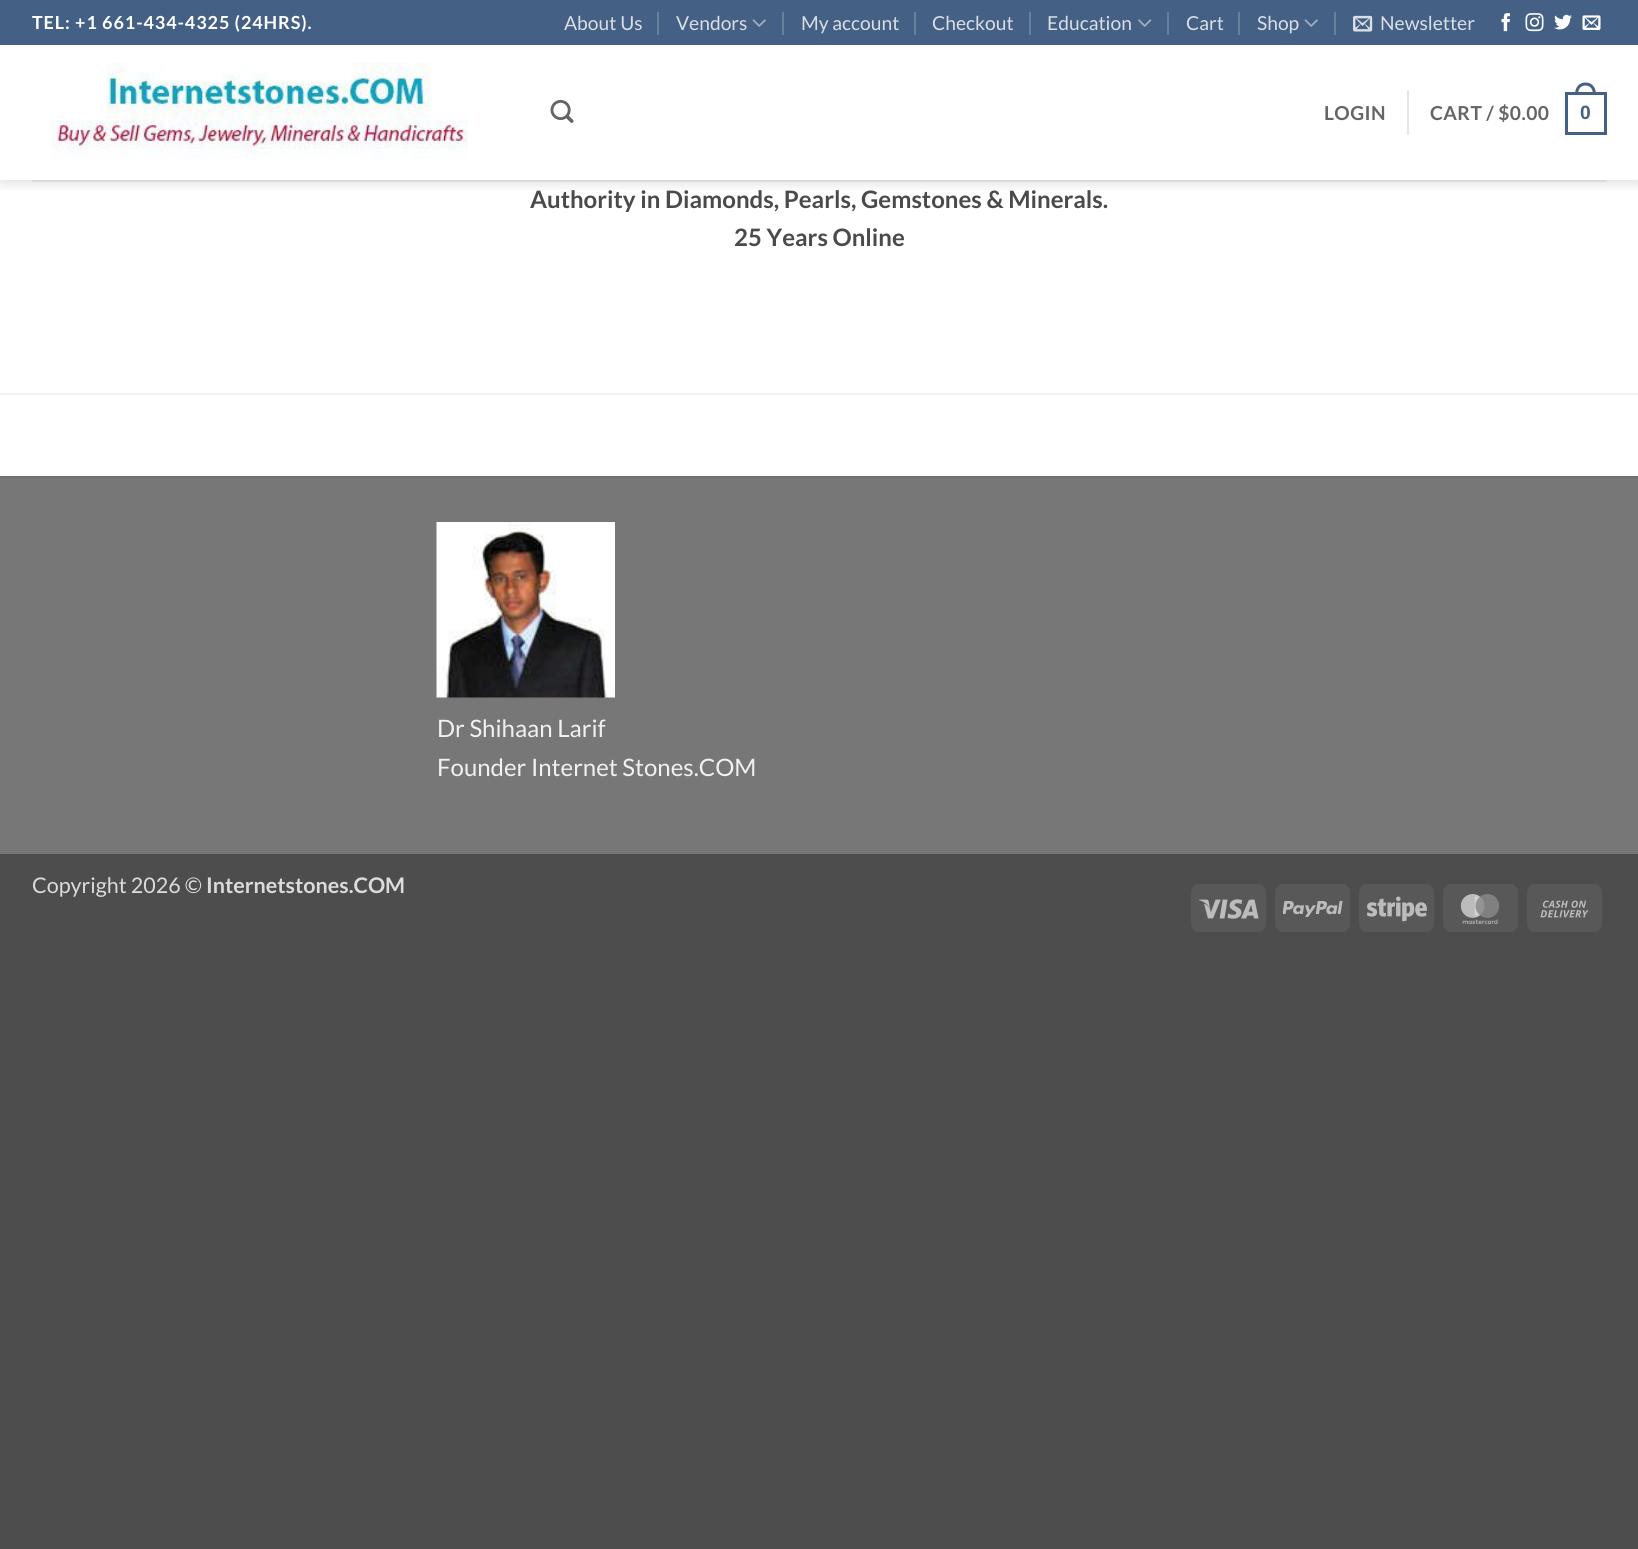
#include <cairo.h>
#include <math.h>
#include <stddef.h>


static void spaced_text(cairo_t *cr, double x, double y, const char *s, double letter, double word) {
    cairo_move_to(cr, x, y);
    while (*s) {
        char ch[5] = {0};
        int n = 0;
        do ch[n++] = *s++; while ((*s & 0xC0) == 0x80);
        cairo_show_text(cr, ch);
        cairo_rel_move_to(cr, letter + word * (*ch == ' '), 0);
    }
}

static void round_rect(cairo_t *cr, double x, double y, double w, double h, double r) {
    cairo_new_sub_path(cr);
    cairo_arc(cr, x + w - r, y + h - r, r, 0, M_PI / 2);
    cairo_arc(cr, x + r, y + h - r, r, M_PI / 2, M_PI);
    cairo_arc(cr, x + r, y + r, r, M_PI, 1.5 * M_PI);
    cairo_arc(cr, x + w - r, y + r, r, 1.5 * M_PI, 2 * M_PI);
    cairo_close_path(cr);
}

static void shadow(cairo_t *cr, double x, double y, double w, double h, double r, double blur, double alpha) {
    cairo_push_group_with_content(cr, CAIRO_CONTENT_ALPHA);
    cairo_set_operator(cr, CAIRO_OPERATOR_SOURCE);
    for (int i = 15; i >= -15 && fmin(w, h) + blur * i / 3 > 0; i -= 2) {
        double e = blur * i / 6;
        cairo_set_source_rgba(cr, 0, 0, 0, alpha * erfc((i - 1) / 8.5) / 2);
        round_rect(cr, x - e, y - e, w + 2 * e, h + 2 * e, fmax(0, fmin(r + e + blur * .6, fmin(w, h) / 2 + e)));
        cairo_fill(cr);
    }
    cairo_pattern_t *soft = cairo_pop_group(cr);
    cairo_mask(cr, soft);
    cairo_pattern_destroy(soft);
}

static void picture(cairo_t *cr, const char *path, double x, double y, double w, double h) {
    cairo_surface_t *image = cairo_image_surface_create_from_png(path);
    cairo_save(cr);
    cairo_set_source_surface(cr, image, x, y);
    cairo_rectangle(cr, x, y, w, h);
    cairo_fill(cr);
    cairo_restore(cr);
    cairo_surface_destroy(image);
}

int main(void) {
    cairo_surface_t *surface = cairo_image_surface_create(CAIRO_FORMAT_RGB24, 1638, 1549);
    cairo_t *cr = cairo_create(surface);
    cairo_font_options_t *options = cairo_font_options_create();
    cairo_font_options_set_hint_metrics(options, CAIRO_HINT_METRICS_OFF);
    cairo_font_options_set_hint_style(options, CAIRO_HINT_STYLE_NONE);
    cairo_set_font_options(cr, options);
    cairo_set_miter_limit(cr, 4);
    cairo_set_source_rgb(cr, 0.302, 0.302, 0.302);
    cairo_paint(cr);
    cairo_set_source_rgb(cr, 1, 1, 1);
    cairo_rectangle(cr, 0, 45, 1638, 431);
    cairo_fill(cr);
    cairo_save(cr);
    cairo_rectangle(cr, 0, 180, 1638, 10);
    cairo_clip(cr);
    cairo_set_source_rgb(cr, 0, 0, 0);
    shadow(cr, 2, 2, 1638, 180, 0, 7.5, 0.15);
    cairo_restore(cr);
    cairo_set_source_rgb(cr, 0.267, 0.376, 0.518);
    cairo_rectangle(cr, 0, 0, 1638, 45);
    cairo_fill(cr);
    cairo_select_font_face(cr, "Lato", CAIRO_FONT_SLANT_NORMAL, CAIRO_FONT_WEIGHT_BOLD);
    cairo_set_font_size(cr, 18);
    cairo_set_source_rgb(cr, 1, 1, 1);
    spaced_text(cr, 32, 29, "TEL: +1 661-434-4325 (24HRS).", 0.9, 0);
    cairo_select_font_face(cr, "Lato", CAIRO_FONT_SLANT_NORMAL, CAIRO_FONT_WEIGHT_NORMAL);
    cairo_set_font_size(cr, 19.25);
    cairo_set_source_rgb(cr, 0.855, 0.875, 0.902);
    cairo_move_to(cr, 564, 30);
    cairo_show_text(cr, "About Us");
    cairo_set_source_rgb(cr, 0.412, 0.502, 0.616);
    cairo_rectangle(cr, 657, 12, 2, 23);
    cairo_fill(cr);
    cairo_set_source_rgb(cr, 0.855, 0.875, 0.902);
    cairo_move_to(cr, 676, 30);
    cairo_show_text(cr, "Vendors");
    picture(cr, "img1.png", 752, 19, 14, 8);
    cairo_set_source_rgb(cr, 0.412, 0.502, 0.616);
    cairo_rectangle(cr, 782, 12, 2, 23);
    cairo_fill(cr);
    cairo_set_source_rgb(cr, 0.855, 0.875, 0.902);
    cairo_move_to(cr, 801, 30);
    cairo_show_text(cr, "My account");
    cairo_set_source_rgb(cr, 0.412, 0.502, 0.616);
    cairo_rectangle(cr, 914, 12, 2, 23);
    cairo_fill(cr);
    cairo_set_source_rgb(cr, 0.855, 0.875, 0.902);
    cairo_move_to(cr, 932, 30);
    cairo_show_text(cr, "Checkout");
    cairo_set_source_rgb(cr, 0.412, 0.502, 0.616);
    cairo_rectangle(cr, 1029, 12, 2, 23);
    cairo_fill(cr);
    cairo_set_source_rgb(cr, 0.855, 0.875, 0.902);
    cairo_move_to(cr, 1047, 30);
    cairo_show_text(cr, "Education");
    picture(cr, "img2.png", 1138, 19, 14, 8);
    cairo_set_source_rgb(cr, 0.412, 0.502, 0.616);
    cairo_rectangle(cr, 1167, 12, 2, 23);
    cairo_fill(cr);
    cairo_set_source_rgb(cr, 0.855, 0.875, 0.902);
    cairo_move_to(cr, 1186, 30);
    cairo_show_text(cr, "Cart");
    cairo_set_source_rgb(cr, 0.412, 0.502, 0.616);
    cairo_rectangle(cr, 1238, 12, 2, 23);
    cairo_fill(cr);
    cairo_set_source_rgb(cr, 0.855, 0.875, 0.902);
    cairo_move_to(cr, 1257, 30);
    cairo_show_text(cr, "Shop");
    picture(cr, "img1.png", 1304, 19, 14, 8);
    cairo_set_source_rgb(cr, 0.412, 0.502, 0.616);
    cairo_rectangle(cr, 1334, 12, 2, 23);
    cairo_fill(cr);
    picture(cr, "img3.png", 1353, 15, 20, 17);
    cairo_set_source_rgb(cr, 0.855, 0.875, 0.902);
    cairo_move_to(cr, 1380, 30);
    cairo_show_text(cr, "Newsletter");
    picture(cr, "img4.png", 1501, 13, 9, 19);
    picture(cr, "img5.png", 1525, 13, 19, 19);
    picture(cr, "img6.png", 1554, 14, 18, 16);
    picture(cr, "img7.png", 1582, 15, 19, 15);
    picture(cr, "img8.png", 50, 63, 419, 96);
    picture(cr, "img9.png", 550, 99, 24, 24);
    cairo_select_font_face(cr, "Lato", CAIRO_FONT_SLANT_NORMAL, CAIRO_FONT_WEIGHT_BOLD);
    cairo_set_source_rgb(cr, 0.396, 0.396, 0.396);
    spaced_text(cr, 1324, 120, "LOGIN", 0.4, 0);
    cairo_set_source_rgb(cr, 0.902, 0.902, 0.902);
    cairo_rectangle(cr, 1407, 90, 2, 45);
    cairo_fill(cr);
    cairo_set_source_rgb(cr, 0.396, 0.396, 0.396);
    spaced_text(cr, 1430, 120, "CART / $0.00", 0.4, 0);
    cairo_rectangle(cr, 1566.5, 93.5, 39, 40);
    cairo_set_source_rgb(cr, 0.267, 0.376, 0.518);
    cairo_set_line_width(cr, 3);
    cairo_stroke(cr);
    cairo_set_fill_rule(cr, CAIRO_FILL_RULE_EVEN_ODD);
    cairo_new_path(cr);
    cairo_move_to(cr, 1585.5, 82.5);
    cairo_curve_to(cr, 1592.5, 82.5, 1596, 88, 1596, 94.5);
    cairo_line_to(cr, 1575, 94.5);
    cairo_curve_to(cr, 1575, 88, 1578.5, 82.5, 1585.5, 82.5);
    cairo_close_path(cr);
    cairo_move_to(cr, 1585.5, 85.5);
    cairo_curve_to(cr, 1591, 85.5, 1593, 90, 1593, 94.5);
    cairo_line_to(cr, 1578, 94.5);
    cairo_curve_to(cr, 1578, 90, 1580, 85.5, 1585.5, 85.5);
    cairo_close_path(cr);
    cairo_fill(cr);
    cairo_select_font_face(cr, "Liberation Sans", CAIRO_FONT_SLANT_NORMAL, CAIRO_FONT_WEIGHT_BOLD);
    spaced_text(cr, 1580, 119, "0", 0.4, 0);
    cairo_set_source_rgb(cr, 0.855, 0.855, 0.855);
    cairo_rectangle(cr, 32, 180, 1575, 2);
    cairo_fill(cr);
    cairo_select_font_face(cr, "Lato", CAIRO_FONT_SLANT_NORMAL, CAIRO_FONT_WEIGHT_BOLD);
    cairo_set_font_size(cr, 24);
    cairo_set_source_rgb(cr, 0.29, 0.29, 0.29);
    cairo_move_to(cr, 530, 208);
    cairo_show_text(cr, "Authority in Diamonds, Pearls, Gemstones & Minerals.");
    cairo_move_to(cr, 734, 246);
    cairo_show_text(cr, "25 Years Online");
    cairo_set_source_rgb(cr, 0.949, 0.949, 0.949);
    cairo_rectangle(cr, 0, 393, 1638, 2);
    cairo_fill(cr);
    cairo_set_source_rgb(cr, 0.467, 0.467, 0.467);
    cairo_rectangle(cr, 0, 478, 1638, 376);
    cairo_fill(cr);
    cairo_set_source_rgb(cr, 0.443, 0.443, 0.443);
    cairo_rectangle(cr, 0, 476, 1638, 2);
    cairo_fill(cr);
    picture(cr, "img10.png", 436, 522, 179, 176);
    cairo_select_font_face(cr, "Lato", CAIRO_FONT_SLANT_NORMAL, CAIRO_FONT_WEIGHT_NORMAL);
    cairo_set_source_rgb(cr, 0.945, 0.945, 0.945);
    cairo_move_to(cr, 437, 737);
    cairo_show_text(cr, "Dr Shihaan Larif");
    cairo_move_to(cr, 437, 776);
    cairo_show_text(cr, "Founder Internet Stones.COM");
    cairo_set_font_size(cr, 21.5);
    cairo_set_source_rgb(cr, 0.859, 0.859, 0.859);
    cairo_move_to(cr, 32, 893);
    cairo_show_text(cr, "Copyright 2026 ©");
    cairo_select_font_face(cr, "Lato", CAIRO_FONT_SLANT_NORMAL, CAIRO_FONT_WEIGHT_BOLD);
    cairo_move_to(cr, 206, 893);
    cairo_show_text(cr, "Internetstones.COM");
    cairo_set_source_rgb(cr, 0.345, 0.345, 0.345);
    round_rect(cr, 1191, 884, 75, 48, 8);
    cairo_fill(cr);
    picture(cr, "img11.png", 1199, 899, 60, 20);
    round_rect(cr, 1275, 884, 75, 48, 8);
    cairo_fill(cr);
    picture(cr, "img12.png", 1283, 901, 60, 16);
    round_rect(cr, 1359, 884, 75, 48, 8);
    cairo_fill(cr);
    picture(cr, "img13.png", 1367, 896, 60, 26);
    round_rect(cr, 1443, 884, 75, 48, 8);
    cairo_fill(cr);
    picture(cr, "img14.png", 1460, 894, 40, 30);
    round_rect(cr, 1527, 884, 75, 48, 8);
    cairo_fill(cr);
    picture(cr, "img15.png", 1540, 900, 49, 18);
    cairo_surface_write_to_png(surface, "page.png");
    cairo_font_options_destroy(options);
    cairo_destroy(cr);
    cairo_surface_destroy(surface);
    return 0;
}
